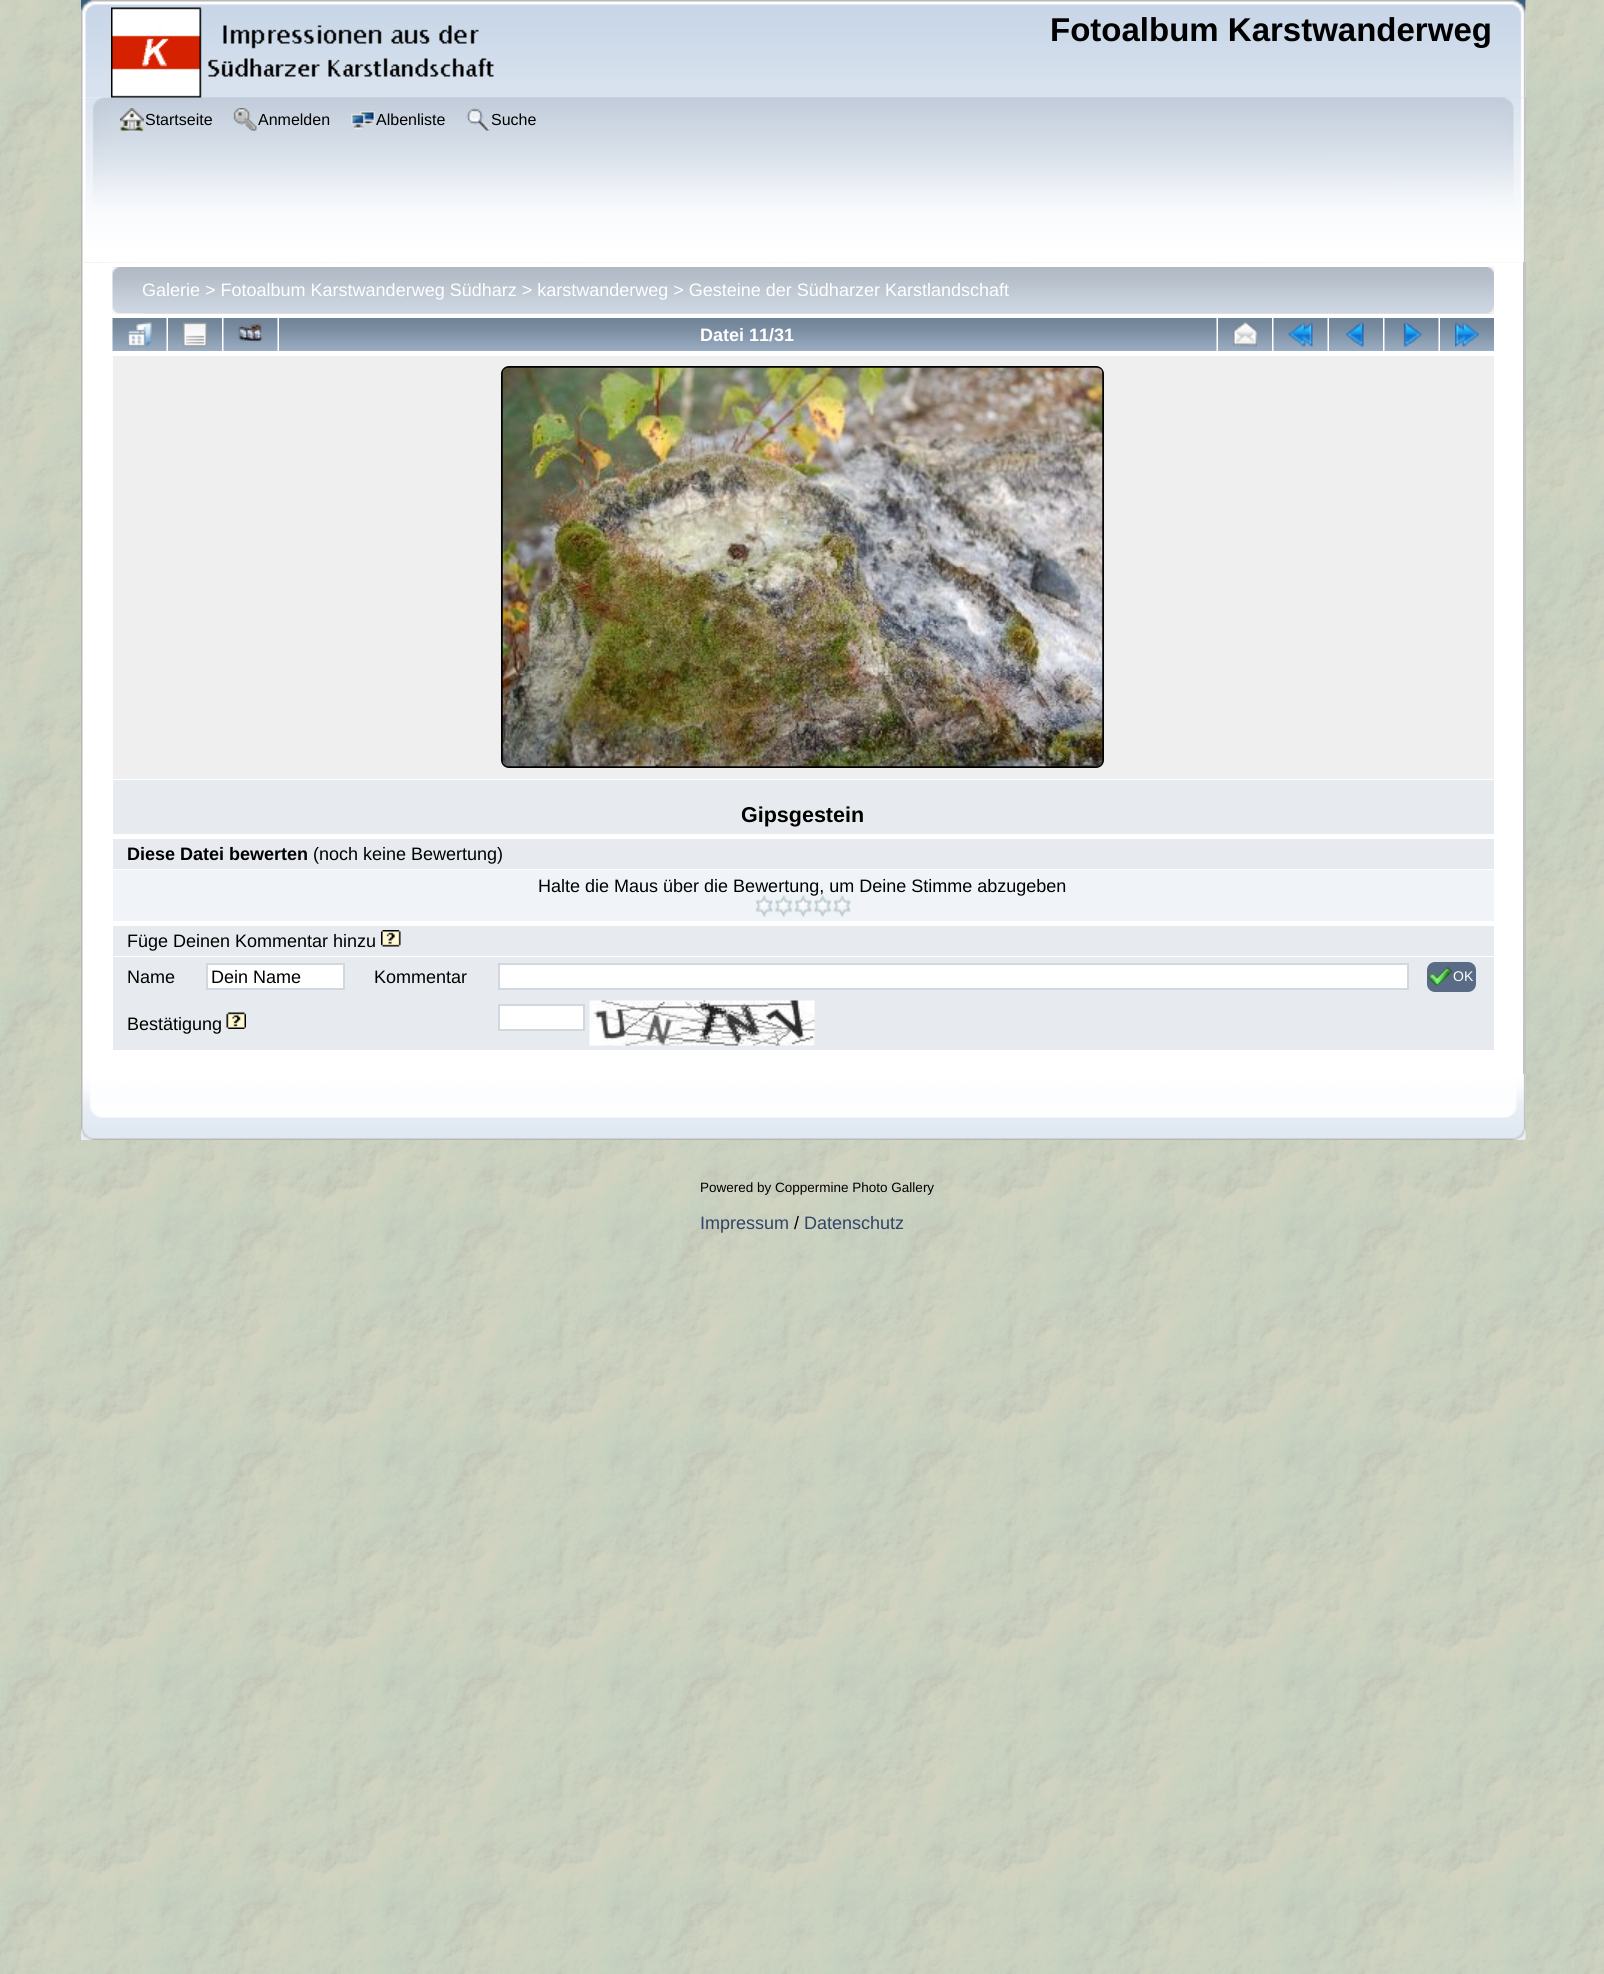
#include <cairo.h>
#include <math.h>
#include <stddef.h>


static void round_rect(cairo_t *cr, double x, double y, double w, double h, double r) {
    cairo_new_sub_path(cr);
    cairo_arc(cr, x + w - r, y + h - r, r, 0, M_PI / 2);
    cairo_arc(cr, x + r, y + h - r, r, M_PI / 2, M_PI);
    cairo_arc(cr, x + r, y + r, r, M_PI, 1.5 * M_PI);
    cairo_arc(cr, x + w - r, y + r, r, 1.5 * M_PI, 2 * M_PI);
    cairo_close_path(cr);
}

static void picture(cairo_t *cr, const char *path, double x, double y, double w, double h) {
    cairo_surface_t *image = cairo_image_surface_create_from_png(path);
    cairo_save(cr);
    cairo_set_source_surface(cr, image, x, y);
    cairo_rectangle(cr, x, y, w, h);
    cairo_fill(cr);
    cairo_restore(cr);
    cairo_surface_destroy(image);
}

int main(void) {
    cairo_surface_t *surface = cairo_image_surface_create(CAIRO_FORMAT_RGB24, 1604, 1974);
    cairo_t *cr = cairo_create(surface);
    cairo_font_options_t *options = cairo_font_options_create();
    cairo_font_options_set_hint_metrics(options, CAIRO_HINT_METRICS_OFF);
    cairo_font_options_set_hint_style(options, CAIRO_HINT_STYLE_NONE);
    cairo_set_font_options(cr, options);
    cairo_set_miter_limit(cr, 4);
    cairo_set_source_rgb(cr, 1, 1, 1);
    cairo_paint(cr);
    picture(cr, "img1.png", 0, 0, 1604, 1974);
    cairo_set_source_rgb(cr, 0.996, 0.996, 0.996);
    cairo_rectangle(cr, 81, 0, 1445, 98);
    cairo_fill(cr);
    picture(cr, "img2.png", 81, 0, 1445, 98);
    picture(cr, "img3.png", 111, 0, 1415, 98);
    picture(cr, "img5.png", 81, 97, 1445, 166);
    picture(cr, "img6.png", 111, 97, 1415, 166);
    picture(cr, "img4.png", 111, 7, 383, 91);
    cairo_select_font_face(cr, "Liberation Sans", CAIRO_FONT_SLANT_NORMAL, CAIRO_FONT_WEIGHT_BOLD);
    cairo_set_font_size(cr, 33);
    cairo_set_source_rgb(cr, 0, 0, 0);
    cairo_move_to(cr, 1050, 41);
    cairo_show_text(cr, "Fotoalbum Karstwanderweg");
    picture(cr, "img7.png", 120, 108, 24, 24);
    cairo_select_font_face(cr, "Liberation Sans", CAIRO_FONT_SLANT_NORMAL, CAIRO_FONT_WEIGHT_NORMAL);
    cairo_set_font_size(cr, 16);
    cairo_move_to(cr, 145, 125);
    cairo_show_text(cr, "Startseite");
    picture(cr, "img8.png", 233, 108, 24, 23);
    cairo_move_to(cr, 258, 125);
    cairo_show_text(cr, "Anmelden");
    picture(cr, "img9.png", 351, 111, 24, 19);
    cairo_move_to(cr, 376, 125);
    cairo_show_text(cr, "Albenliste");
    picture(cr, "img10.png", 466, 108, 24, 23);
    cairo_move_to(cr, 491, 125);
    cairo_show_text(cr, "Suche");
    picture(cr, "img11.png", 81, 262, 1442, 812);
    cairo_set_source_rgb(cr, 0.765, 0.765, 0.765);
    cairo_rectangle(cr, 1523, 262, 3, 812);
    cairo_fill(cr);
    picture(cr, "img12.png", 112, 267, 1382, 47);
    picture(cr, "img13.png", 142, 267, 1352, 47);
    cairo_set_font_size(cr, 18);
    cairo_set_source_rgb(cr, 1, 1, 1);
    cairo_move_to(cr, 142, 296);
    cairo_show_text(cr, "Galerie > Fotoalbum Karstwanderweg Südharz > karstwanderweg > Gesteine der Südharzer Karstlandschaft");
    picture(cr, "img14.png", 112, 318, 55, 33);
    picture(cr, "img15.png", 127, 322, 25, 25);
    picture(cr, "img16.png", 168, 318, 54, 33);
    picture(cr, "img17.png", 183, 322, 24, 25);
    picture(cr, "img14.png", 223, 318, 55, 33);
    picture(cr, "img18.png", 238, 323, 25, 19);
    picture(cr, "img19.png", 279, 318, 938, 33);
    cairo_select_font_face(cr, "Liberation Sans", CAIRO_FONT_SLANT_NORMAL, CAIRO_FONT_WEIGHT_BOLD);
    cairo_move_to(cr, 700, 341);
    cairo_show_text(cr, "Datei 11/31");
    picture(cr, "img16.png", 1218, 318, 54, 33);
    picture(cr, "img20.png", 1233, 322, 24, 25);
    picture(cr, "img14.png", 1273, 318, 55, 33);
    picture(cr, "img21.png", 1288, 322, 25, 25);
    picture(cr, "img16.png", 1329, 318, 54, 33);
    picture(cr, "img22.png", 1345, 322, 19, 25);
    picture(cr, "img14.png", 1384, 318, 55, 33);
    picture(cr, "img23.png", 1403, 322, 20, 25);
    picture(cr, "img16.png", 1440, 318, 54, 33);
    picture(cr, "img24.png", 1455, 322, 24, 25);
    cairo_set_source_rgb(cr, 0.937, 0.937, 0.937);
    cairo_rectangle(cr, 113, 356, 1381, 423);
    cairo_fill(cr);
    round_rect(cr, 502, 367, 601, 400, 7);
    cairo_set_source_rgb(cr, 0, 0, 0);
    cairo_stroke(cr);
    picture(cr, "img25.png", 502, 367, 601, 400);
    cairo_set_source_rgb(cr, 0.906, 0.918, 0.937);
    cairo_rectangle(cr, 113, 780, 1381, 54);
    cairo_fill(cr);
    cairo_set_font_size(cr, 21.5);
    cairo_set_source_rgb(cr, 0, 0, 0);
    cairo_move_to(cr, 741, 822);
    cairo_show_text(cr, "Gipsgestein");
    cairo_set_source_rgb(cr, 0.906, 0.918, 0.937);
    cairo_rectangle(cr, 113, 839, 1381, 30);
    cairo_fill(cr);
    cairo_set_font_size(cr, 18);
    cairo_set_source_rgb(cr, 0, 0, 0);
    cairo_move_to(cr, 127, 860);
    cairo_show_text(cr, "Diese Datei bewerten");
    cairo_select_font_face(cr, "Liberation Sans", CAIRO_FONT_SLANT_NORMAL, CAIRO_FONT_WEIGHT_NORMAL);
    cairo_move_to(cr, 313, 860);
    cairo_show_text(cr, "(noch keine Bewertung)");
    cairo_set_source_rgb(cr, 0.941, 0.957, 0.969);
    cairo_rectangle(cr, 113, 870, 1381, 51);
    cairo_fill(cr);
    cairo_set_source_rgb(cr, 0, 0, 0);
    cairo_move_to(cr, 538, 892);
    cairo_show_text(cr, "Halte die Maus über die Bewertung, um Deine Stimme abzugeben");
    picture(cr, "img26.png", 754, 895, 20, 22);
    picture(cr, "img27.png", 774, 895, 19, 22);
    picture(cr, "img28.png", 793, 895, 20, 22);
    picture(cr, "img29.png", 813, 895, 19, 22);
    picture(cr, "img30.png", 832, 895, 20, 22);
    cairo_set_source_rgb(cr, 0.906, 0.918, 0.937);
    cairo_rectangle(cr, 113, 926, 1381, 30);
    cairo_fill(cr);
    cairo_set_source_rgb(cr, 0, 0, 0);
    cairo_move_to(cr, 127, 947);
    cairo_show_text(cr, "Füge Deinen Kommentar hinzu");
    picture(cr, "img31.png", 381, 930, 20, 17);
    cairo_set_source_rgb(cr, 0.906, 0.918, 0.937);
    cairo_rectangle(cr, 113, 957, 1381, 39);
    cairo_fill(cr);
    cairo_set_source_rgb(cr, 0, 0, 0);
    cairo_move_to(cr, 127, 983);
    cairo_show_text(cr, "Name");
    cairo_set_source_rgb(cr, 1, 1, 1);
    cairo_rectangle(cr, 207, 964, 137, 25);
    cairo_fill_preserve(cr);
    cairo_set_source_rgb(cr, 0.82, 0.843, 0.863);
    cairo_stroke(cr);
    cairo_set_source_rgb(cr, 0, 0, 0);
    cairo_move_to(cr, 211, 983);
    cairo_show_text(cr, "Dein Name");
    cairo_move_to(cr, 374, 983);
    cairo_show_text(cr, "Kommentar");
    cairo_set_source_rgb(cr, 1, 1, 1);
    cairo_rectangle(cr, 499, 964, 909, 25);
    cairo_fill_preserve(cr);
    cairo_set_source_rgb(cr, 0.82, 0.843, 0.863);
    cairo_stroke(cr);
    cairo_set_source_rgb(cr, 0.353, 0.424, 0.522);
    round_rect(cr, 1428, 963, 47, 28, 7);
    cairo_fill_preserve(cr);
    cairo_stroke(cr);
    picture(cr, "img32.png", 1428, 967, 24, 19);
    cairo_set_font_size(cr, 14);
    cairo_set_source_rgb(cr, 1, 1, 1);
    cairo_move_to(cr, 1453, 981);
    cairo_show_text(cr, "OK");
    cairo_set_source_rgb(cr, 0.906, 0.918, 0.937);
    cairo_rectangle(cr, 113, 996, 1381, 54);
    cairo_fill(cr);
    cairo_set_font_size(cr, 18);
    cairo_set_source_rgb(cr, 0, 0, 0);
    cairo_move_to(cr, 127, 1030);
    cairo_show_text(cr, "Bestätigung");
    picture(cr, "img33.png", 226, 1012, 20, 17);
    cairo_set_source_rgb(cr, 1, 1, 1);
    cairo_rectangle(cr, 499, 1005, 85, 25);
    cairo_fill_preserve(cr);
    cairo_set_source_rgb(cr, 0.82, 0.843, 0.863);
    cairo_stroke(cr);
    picture(cr, "img34.png", 589, 1000, 226, 46);
    picture(cr, "img35.png", 81, 1074, 1445, 66);
    picture(cr, "img36.png", 1507, 1074, 19, 66);
    cairo_set_font_size(cr, 13.5);
    cairo_set_source_rgb(cr, 0, 0, 0);
    cairo_move_to(cr, 700, 1192);
    cairo_show_text(cr, "Powered by Coppermine Photo Gallery");
    cairo_set_font_size(cr, 18);
    cairo_set_source_rgb(cr, 0.2, 0.267, 0.4);
    cairo_move_to(cr, 700, 1229);
    cairo_show_text(cr, "Impressum");
    cairo_set_source_rgb(cr, 0, 0, 0);
    cairo_move_to(cr, 794, 1229);
    cairo_show_text(cr, "/");
    cairo_set_source_rgb(cr, 0.2, 0.267, 0.4);
    cairo_move_to(cr, 804, 1229);
    cairo_show_text(cr, "Datenschutz");
    cairo_surface_write_to_png(surface, "page.png");
    cairo_font_options_destroy(options);
    cairo_destroy(cr);
    cairo_surface_destroy(surface);
    return 0;
}
